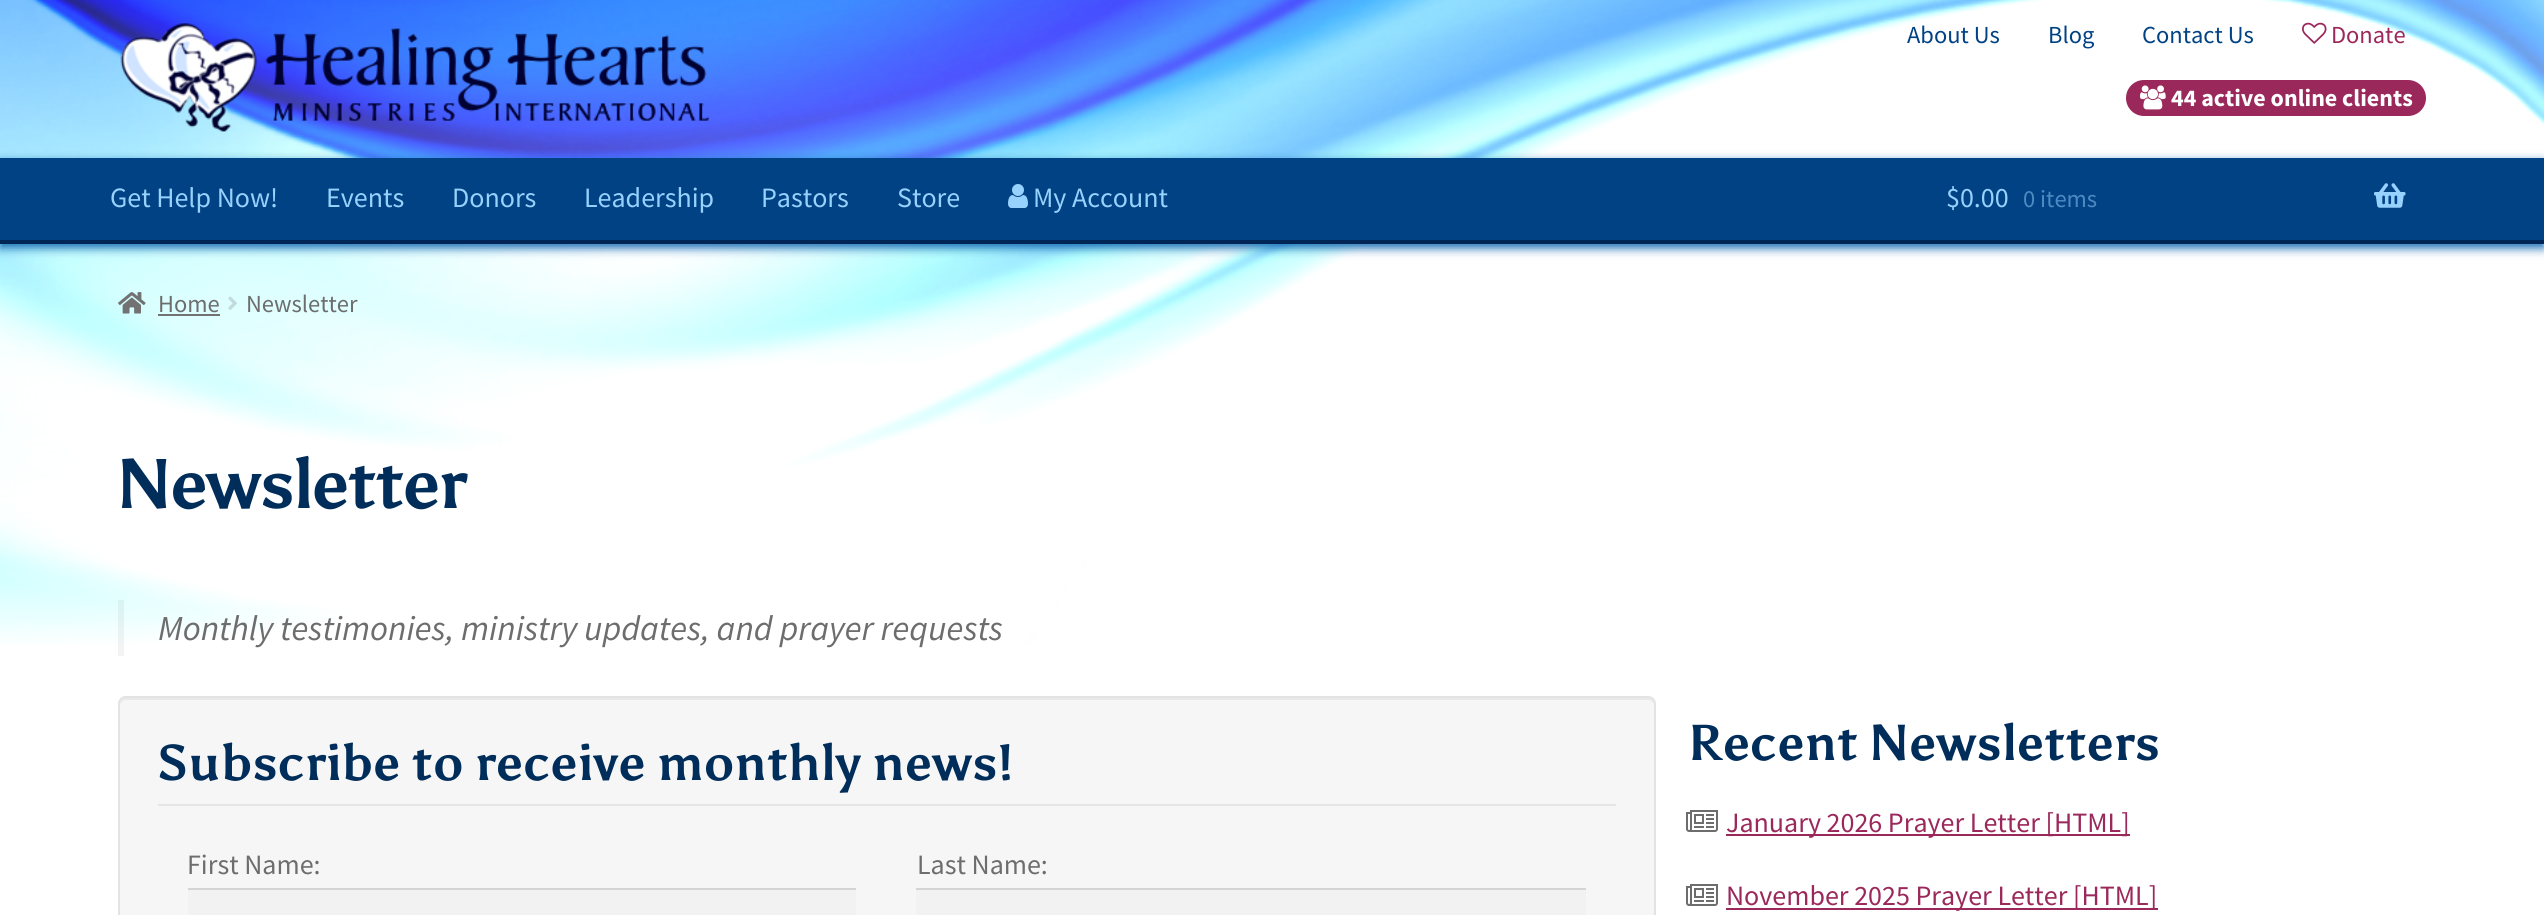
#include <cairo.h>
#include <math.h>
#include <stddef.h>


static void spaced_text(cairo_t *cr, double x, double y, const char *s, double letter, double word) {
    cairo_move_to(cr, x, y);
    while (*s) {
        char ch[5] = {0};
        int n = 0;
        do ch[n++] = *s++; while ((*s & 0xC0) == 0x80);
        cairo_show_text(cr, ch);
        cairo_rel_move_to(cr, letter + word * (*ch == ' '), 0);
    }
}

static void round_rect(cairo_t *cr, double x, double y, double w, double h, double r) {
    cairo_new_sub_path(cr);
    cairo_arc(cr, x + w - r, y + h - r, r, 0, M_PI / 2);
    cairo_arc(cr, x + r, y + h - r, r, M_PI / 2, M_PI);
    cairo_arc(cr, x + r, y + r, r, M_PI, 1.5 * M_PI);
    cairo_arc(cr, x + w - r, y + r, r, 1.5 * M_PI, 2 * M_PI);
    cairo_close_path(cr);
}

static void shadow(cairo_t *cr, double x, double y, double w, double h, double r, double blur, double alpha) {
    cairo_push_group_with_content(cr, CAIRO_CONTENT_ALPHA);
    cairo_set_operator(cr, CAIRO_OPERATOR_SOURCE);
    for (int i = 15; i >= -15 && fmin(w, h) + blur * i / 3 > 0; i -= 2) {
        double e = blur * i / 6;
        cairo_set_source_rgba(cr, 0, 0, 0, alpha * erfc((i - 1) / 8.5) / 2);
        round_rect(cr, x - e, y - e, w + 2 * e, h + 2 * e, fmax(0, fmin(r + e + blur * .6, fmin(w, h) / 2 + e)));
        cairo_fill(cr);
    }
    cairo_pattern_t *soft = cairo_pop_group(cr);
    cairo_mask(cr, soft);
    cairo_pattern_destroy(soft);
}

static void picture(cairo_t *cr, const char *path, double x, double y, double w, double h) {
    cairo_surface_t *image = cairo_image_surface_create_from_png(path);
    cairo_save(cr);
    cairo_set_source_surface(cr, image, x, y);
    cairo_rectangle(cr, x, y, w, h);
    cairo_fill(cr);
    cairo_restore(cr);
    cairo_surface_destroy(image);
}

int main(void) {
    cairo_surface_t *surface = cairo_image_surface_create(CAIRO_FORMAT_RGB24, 2544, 915);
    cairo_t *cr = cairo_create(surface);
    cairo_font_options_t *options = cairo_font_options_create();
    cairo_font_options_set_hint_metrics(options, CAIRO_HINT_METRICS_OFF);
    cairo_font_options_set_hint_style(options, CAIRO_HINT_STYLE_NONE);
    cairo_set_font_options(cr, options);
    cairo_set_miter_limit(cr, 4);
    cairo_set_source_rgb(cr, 1, 1, 1);
    cairo_paint(cr);
    picture(cr, "img1.png", 0, 0, 2544, 645);
    picture(cr, "img2.png", 120, 23, 589, 109);
    cairo_select_font_face(cr, "Source Sans Pro", CAIRO_FONT_SLANT_NORMAL, CAIRO_FONT_WEIGHT_NORMAL);
    cairo_set_font_size(cr, 24.5);
    cairo_set_source_rgb(cr, 0.004, 0.259, 0.518);
    cairo_move_to(cr, 1907, 43);
    cairo_show_text(cr, "About Us");
    cairo_move_to(cr, 2048, 43);
    cairo_show_text(cr, "Blog");
    cairo_move_to(cr, 2142, 43);
    cairo_show_text(cr, "Contact Us");
    picture(cr, "img3.png", 2302, 22, 25, 22);
    cairo_set_source_rgb(cr, 0.608, 0.157, 0.353);
    cairo_move_to(cr, 2331, 43);
    cairo_show_text(cr, "Donate");
    round_rect(cr, 2126, 80, 300, 36, 18);
    cairo_fill(cr);
    picture(cr, "img4.png", 2140, 85, 26, 25);
    cairo_select_font_face(cr, "Source Sans Pro", CAIRO_FONT_SLANT_NORMAL, CAIRO_FONT_WEIGHT_BOLD);
    cairo_set_font_size(cr, 24);
    cairo_set_source_rgb(cr, 1, 1, 1);
    cairo_move_to(cr, 2171, 106);
    cairo_show_text(cr, "44 active online clients");
    cairo_set_source_rgb(cr, 0.078, 0.412, 0.706);
    shadow(cr, 0, 162, 2544, 86, 0, 5, 1);
    cairo_set_source_rgb(cr, 0.004, 0.259, 0.518);
    cairo_rectangle(cr, 0, 158, 2544, 82);
    cairo_fill(cr);
    cairo_set_source_rgb(cr, 0, 0.149, 0.345);
    cairo_rectangle(cr, 0, 240, 2544, 4);
    cairo_fill(cr);
    cairo_select_font_face(cr, "Source Sans Pro", CAIRO_FONT_SLANT_NORMAL, CAIRO_FONT_WEIGHT_NORMAL);
    cairo_set_font_size(cr, 28);
    cairo_set_source_rgb(cr, 0.592, 0.82, 0.996);
    cairo_move_to(cr, 110, 207);
    cairo_show_text(cr, "Get Help Now!");
    cairo_move_to(cr, 326, 207);
    cairo_show_text(cr, "Events");
    cairo_move_to(cr, 452, 207);
    cairo_show_text(cr, "Donors");
    cairo_move_to(cr, 584, 207);
    cairo_show_text(cr, "Leadership");
    cairo_move_to(cr, 761, 207);
    cairo_show_text(cr, "Pastors");
    cairo_move_to(cr, 897, 207);
    cairo_show_text(cr, "Store");
    picture(cr, "img5.png", 1008, 184, 20, 24);
    cairo_move_to(cr, 1033, 207);
    cairo_show_text(cr, "My Account");
    cairo_move_to(cr, 1946, 207);
    cairo_show_text(cr, "$0.00");
    cairo_set_font_size(cr, 24.5);
    cairo_set_source_rgb(cr, 0.298, 0.541, 0.757);
    cairo_move_to(cr, 2023, 207);
    cairo_show_text(cr, "0 items");
    picture(cr, "img6.png", 2374, 183, 32, 25);
    picture(cr, "img7.png", 118, 292, 28, 22);
    cairo_set_source_rgb(cr, 0.427, 0.427, 0.427);
    cairo_move_to(cr, 158, 312);
    cairo_show_text(cr, "Home");
    cairo_set_source_rgb(cr, 0.447, 0.447, 0.447);
    cairo_rectangle(cr, 158, 314, 62, 2);
    cairo_fill(cr);
    picture(cr, "img8.png", 228, 296, 9, 14);
    cairo_set_source_rgb(cr, 0.427, 0.427, 0.427);
    cairo_move_to(cr, 246, 312);
    cairo_show_text(cr, "Newsletter");
    cairo_select_font_face(cr, "Asul", CAIRO_FONT_SLANT_NORMAL, CAIRO_FONT_WEIGHT_BOLD);
    cairo_set_font_size(cr, 70);
    cairo_set_source_rgb(cr, 0, 0.176, 0.353);
    spaced_text(cr, 117, 508, "Newsletter", -2, 0);
    cairo_set_source_rgba(cr, 0, 0, 0, 0.05);
    cairo_rectangle(cr, 118, 600, 6, 56);
    cairo_fill(cr);
    cairo_select_font_face(cr, "Source Sans Pro", CAIRO_FONT_SLANT_ITALIC, CAIRO_FONT_WEIGHT_NORMAL);
    cairo_set_font_size(cr, 35);
    cairo_set_source_rgb(cr, 0.427, 0.427, 0.427);
    cairo_move_to(cr, 158, 640);
    cairo_show_text(cr, "Monthly testimonies, ministry updates, and prayer requests");
    cairo_set_source_rgb(cr, 0.961, 0.961, 0.961);
    round_rect(cr, 118, 696, 1538, 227, 8);
    cairo_fill(cr);
    cairo_set_source_rgb(cr, 0.914, 0.914, 0.914);
    cairo_new_path(cr);
    cairo_move_to(cr, 126, 700);
    cairo_line_to(cr, 1648, 700);
    cairo_curve_to(cr, 1651, 700, 1654, 703, 1654, 706);
    cairo_curve_to(cr, 1654, 702, 1653, 698, 1648, 698);
    cairo_line_to(cr, 126, 698);
    cairo_curve_to(cr, 121, 698, 120, 702, 120, 706);
    cairo_curve_to(cr, 120, 703, 123, 700, 126, 700);
    cairo_close_path(cr);
    cairo_fill(cr);
    round_rect(cr, 119, 697, 1536, 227, 7);
    cairo_set_source_rgb(cr, 0.89, 0.89, 0.89);
    cairo_stroke(cr);
    cairo_set_source_rgb(cr, 0.898, 0.898, 0.898);
    cairo_rectangle(cr, 158, 804, 1458, 2);
    cairo_fill(cr);
    cairo_select_font_face(cr, "Asul", CAIRO_FONT_SLANT_NORMAL, CAIRO_FONT_WEIGHT_BOLD);
    cairo_set_font_size(cr, 50.4);
    cairo_set_source_rgb(cr, 0, 0.176, 0.353);
    cairo_move_to(cr, 157, 780);
    cairo_show_text(cr, "Subscribe to receive monthly news!");
    cairo_select_font_face(cr, "Source Sans Pro", CAIRO_FONT_SLANT_NORMAL, CAIRO_FONT_WEIGHT_NORMAL);
    cairo_set_font_size(cr, 28);
    cairo_set_source_rgb(cr, 0.427, 0.427, 0.427);
    cairo_move_to(cr, 187, 874);
    cairo_show_text(cr, "First Name:");
    cairo_set_source_rgb(cr, 0.949, 0.949, 0.949);
    cairo_rectangle(cr, 188, 890, 668, 25);
    cairo_fill(cr);
    cairo_set_source_rgb(cr, 0.831, 0.831, 0.831);
    cairo_rectangle(cr, 188, 888, 668, 2);
    cairo_fill(cr);
    cairo_set_source_rgb(cr, 0.427, 0.427, 0.427);
    cairo_move_to(cr, 917, 874);
    cairo_show_text(cr, "Last Name:");
    cairo_set_source_rgb(cr, 0.949, 0.949, 0.949);
    cairo_rectangle(cr, 916, 890, 670, 25);
    cairo_fill(cr);
    cairo_set_source_rgb(cr, 0.831, 0.831, 0.831);
    cairo_rectangle(cr, 916, 888, 670, 2);
    cairo_fill(cr);
    cairo_select_font_face(cr, "Asul", CAIRO_FONT_SLANT_NORMAL, CAIRO_FONT_WEIGHT_BOLD);
    cairo_set_font_size(cr, 50.4);
    cairo_set_source_rgb(cr, 0, 0.176, 0.353);
    cairo_move_to(cr, 1687, 760);
    cairo_show_text(cr, "Recent Newsletters");
    picture(cr, "img9.png", 1686, 810, 32, 22);
    cairo_set_source_rgb(cr, 0.608, 0.157, 0.353);
    cairo_rectangle(cr, 1726, 834, 404, 2);
    cairo_fill(cr);
    cairo_select_font_face(cr, "Source Sans Pro", CAIRO_FONT_SLANT_NORMAL, CAIRO_FONT_WEIGHT_NORMAL);
    cairo_set_font_size(cr, 28);
    cairo_move_to(cr, 1726, 832);
    cairo_show_text(cr, "January 2026 Prayer Letter [HTML]");
    picture(cr, "img9.png", 1686, 884, 32, 22);
    cairo_rectangle(cr, 1726, 908, 432, 2);
    cairo_fill(cr);
    cairo_move_to(cr, 1726, 905);
    cairo_show_text(cr, "November 2025 Prayer Letter [HTML]");
    cairo_surface_write_to_png(surface, "page.png");
    cairo_font_options_destroy(options);
    cairo_destroy(cr);
    cairo_surface_destroy(surface);
    return 0;
}
